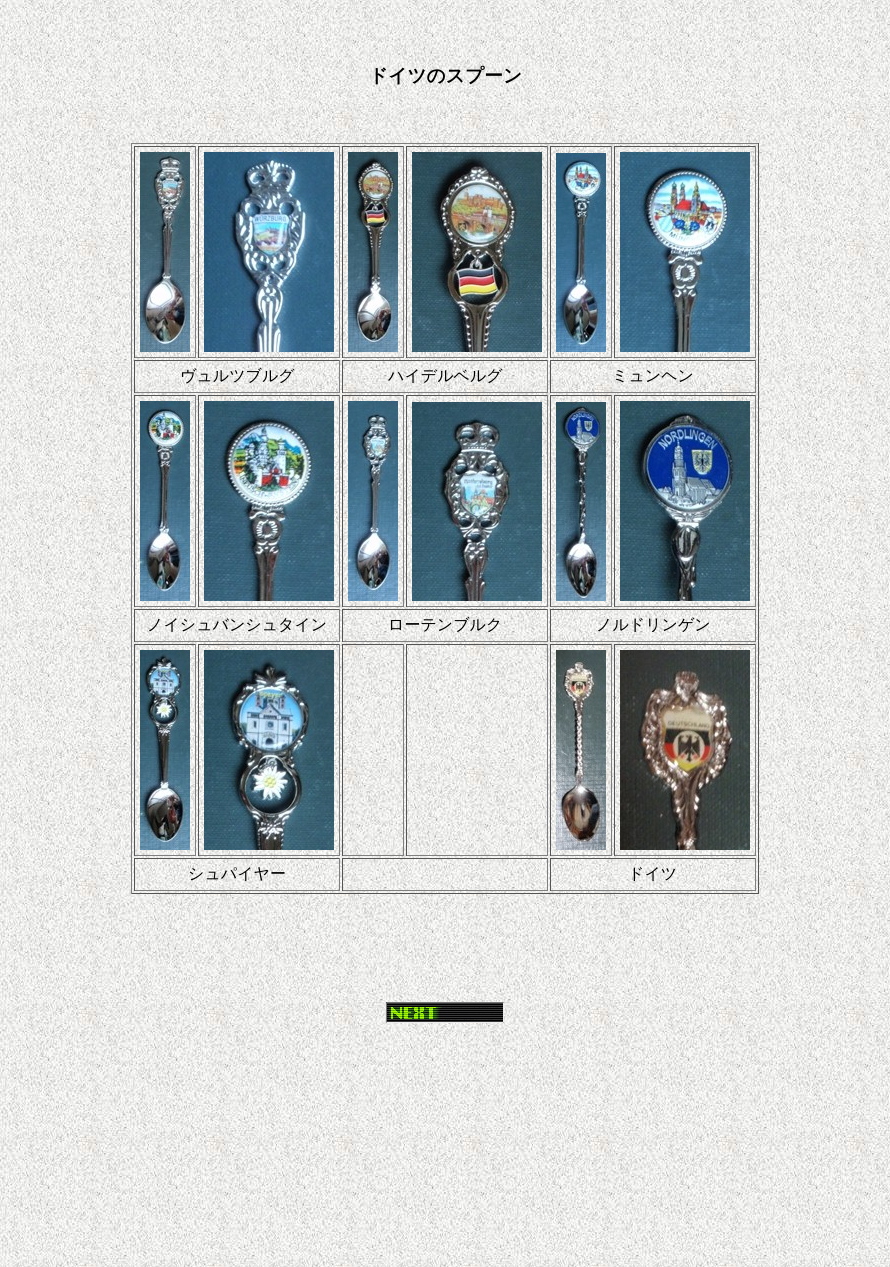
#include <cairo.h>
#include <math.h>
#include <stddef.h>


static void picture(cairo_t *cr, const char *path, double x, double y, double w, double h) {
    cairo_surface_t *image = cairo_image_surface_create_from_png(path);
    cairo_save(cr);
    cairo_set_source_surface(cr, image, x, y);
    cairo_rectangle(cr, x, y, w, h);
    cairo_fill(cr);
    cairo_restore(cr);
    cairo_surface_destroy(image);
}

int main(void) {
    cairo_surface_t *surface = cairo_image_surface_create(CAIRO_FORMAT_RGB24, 890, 1267);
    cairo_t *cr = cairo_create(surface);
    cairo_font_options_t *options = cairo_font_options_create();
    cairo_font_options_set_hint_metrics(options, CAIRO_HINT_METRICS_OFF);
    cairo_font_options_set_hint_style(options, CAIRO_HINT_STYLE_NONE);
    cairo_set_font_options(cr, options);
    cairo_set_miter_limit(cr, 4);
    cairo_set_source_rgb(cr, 1, 1, 1);
    cairo_paint(cr);
    picture(cr, "img1.png", 0, 0, 890, 1267);
    cairo_select_font_face(cr, "WenQuanYi Zen Hei", CAIRO_FONT_SLANT_NORMAL, CAIRO_FONT_WEIGHT_BOLD);
    cairo_set_font_size(cr, 18.75);
    cairo_set_source_rgb(cr, 0, 0, 0);
    cairo_move_to(cr, 369, 82);
    cairo_show_text(cr, "ドイツのスプーン");
    picture(cr, "img2.png", 132, 144, 626, 749);
    cairo_set_source_rgb(cr, 0.502, 0.502, 0.502);
    cairo_rectangle(cr, 131, 143, 628, 1);
    cairo_fill(cr);
    cairo_set_source_rgb(cr, 0.333, 0.333, 0.333);
    cairo_rectangle(cr, 758, 143, 1, 751);
    cairo_fill(cr);
    cairo_rectangle(cr, 131, 893, 628, 1);
    cairo_fill(cr);
    cairo_set_source_rgb(cr, 0.502, 0.502, 0.502);
    cairo_rectangle(cr, 131, 143, 1, 751);
    cairo_fill(cr);
    cairo_set_source_rgb(cr, 0.333, 0.333, 0.333);
    cairo_rectangle(cr, 134, 146, 62, 1);
    cairo_fill(cr);
    cairo_set_source_rgb(cr, 0.502, 0.502, 0.502);
    cairo_rectangle(cr, 195, 146, 1, 212);
    cairo_fill(cr);
    cairo_rectangle(cr, 134, 357, 62, 1);
    cairo_fill(cr);
    cairo_set_source_rgb(cr, 0.333, 0.333, 0.333);
    cairo_rectangle(cr, 134, 146, 1, 212);
    cairo_fill(cr);
    picture(cr, "img3.png", 140, 152, 50, 200);
    cairo_rectangle(cr, 198, 146, 142, 1);
    cairo_fill(cr);
    cairo_set_source_rgb(cr, 0.502, 0.502, 0.502);
    cairo_rectangle(cr, 339, 146, 1, 212);
    cairo_fill(cr);
    cairo_rectangle(cr, 198, 357, 142, 1);
    cairo_fill(cr);
    cairo_set_source_rgb(cr, 0.333, 0.333, 0.333);
    cairo_rectangle(cr, 198, 146, 1, 212);
    cairo_fill(cr);
    picture(cr, "img4.png", 204, 152, 130, 200);
    cairo_rectangle(cr, 342, 146, 62, 1);
    cairo_fill(cr);
    cairo_set_source_rgb(cr, 0.502, 0.502, 0.502);
    cairo_rectangle(cr, 403, 146, 1, 212);
    cairo_fill(cr);
    cairo_rectangle(cr, 342, 357, 62, 1);
    cairo_fill(cr);
    cairo_set_source_rgb(cr, 0.333, 0.333, 0.333);
    cairo_rectangle(cr, 342, 146, 1, 212);
    cairo_fill(cr);
    picture(cr, "img5.png", 348, 152, 50, 200);
    cairo_rectangle(cr, 406, 146, 142, 1);
    cairo_fill(cr);
    cairo_set_source_rgb(cr, 0.502, 0.502, 0.502);
    cairo_rectangle(cr, 547, 146, 1, 212);
    cairo_fill(cr);
    cairo_rectangle(cr, 406, 357, 142, 1);
    cairo_fill(cr);
    cairo_set_source_rgb(cr, 0.333, 0.333, 0.333);
    cairo_rectangle(cr, 406, 146, 1, 212);
    cairo_fill(cr);
    picture(cr, "img6.png", 412, 152, 130, 200);
    cairo_rectangle(cr, 550, 146, 62, 1);
    cairo_fill(cr);
    cairo_set_source_rgb(cr, 0.502, 0.502, 0.502);
    cairo_rectangle(cr, 611, 146, 1, 212);
    cairo_fill(cr);
    cairo_rectangle(cr, 550, 357, 62, 1);
    cairo_fill(cr);
    cairo_set_source_rgb(cr, 0.333, 0.333, 0.333);
    cairo_rectangle(cr, 550, 146, 1, 212);
    cairo_fill(cr);
    picture(cr, "img7.png", 556, 153, 50, 199);
    cairo_rectangle(cr, 614, 146, 142, 1);
    cairo_fill(cr);
    cairo_set_source_rgb(cr, 0.502, 0.502, 0.502);
    cairo_rectangle(cr, 755, 146, 1, 212);
    cairo_fill(cr);
    cairo_rectangle(cr, 614, 357, 142, 1);
    cairo_fill(cr);
    cairo_set_source_rgb(cr, 0.333, 0.333, 0.333);
    cairo_rectangle(cr, 614, 146, 1, 212);
    cairo_fill(cr);
    picture(cr, "img8.png", 620, 152, 130, 200);
    cairo_rectangle(cr, 134, 360, 206, 1);
    cairo_fill(cr);
    cairo_set_source_rgb(cr, 0.502, 0.502, 0.502);
    cairo_rectangle(cr, 339, 360, 1, 33);
    cairo_fill(cr);
    cairo_rectangle(cr, 134, 392, 206, 1);
    cairo_fill(cr);
    cairo_set_source_rgb(cr, 0.333, 0.333, 0.333);
    cairo_rectangle(cr, 134, 360, 1, 33);
    cairo_fill(cr);
    cairo_select_font_face(cr, "WenQuanYi Zen Hei Medium", CAIRO_FONT_SLANT_NORMAL, CAIRO_FONT_WEIGHT_NORMAL);
    cairo_set_font_size(cr, 16);
    cairo_set_source_rgb(cr, 0, 0, 0);
    cairo_move_to(cr, 180, 381);
    cairo_show_text(cr, "ヴュルツブルグ");
    cairo_set_source_rgb(cr, 0.333, 0.333, 0.333);
    cairo_rectangle(cr, 342, 360, 206, 1);
    cairo_fill(cr);
    cairo_set_source_rgb(cr, 0.502, 0.502, 0.502);
    cairo_rectangle(cr, 547, 360, 1, 33);
    cairo_fill(cr);
    cairo_rectangle(cr, 342, 392, 206, 1);
    cairo_fill(cr);
    cairo_set_source_rgb(cr, 0.333, 0.333, 0.333);
    cairo_rectangle(cr, 342, 360, 1, 33);
    cairo_fill(cr);
    cairo_set_source_rgb(cr, 0, 0, 0);
    cairo_move_to(cr, 388, 381);
    cairo_show_text(cr, "ハイデルベルグ");
    cairo_set_source_rgb(cr, 0.333, 0.333, 0.333);
    cairo_rectangle(cr, 550, 360, 206, 1);
    cairo_fill(cr);
    cairo_set_source_rgb(cr, 0.502, 0.502, 0.502);
    cairo_rectangle(cr, 755, 360, 1, 33);
    cairo_fill(cr);
    cairo_rectangle(cr, 550, 392, 206, 1);
    cairo_fill(cr);
    cairo_set_source_rgb(cr, 0.333, 0.333, 0.333);
    cairo_rectangle(cr, 550, 360, 1, 33);
    cairo_fill(cr);
    cairo_set_source_rgb(cr, 0, 0, 0);
    cairo_move_to(cr, 612, 381);
    cairo_show_text(cr, "ミュンヘン");
    cairo_set_source_rgb(cr, 0.333, 0.333, 0.333);
    cairo_rectangle(cr, 134, 395, 62, 1);
    cairo_fill(cr);
    cairo_set_source_rgb(cr, 0.502, 0.502, 0.502);
    cairo_rectangle(cr, 195, 395, 1, 212);
    cairo_fill(cr);
    cairo_rectangle(cr, 134, 606, 62, 1);
    cairo_fill(cr);
    cairo_set_source_rgb(cr, 0.333, 0.333, 0.333);
    cairo_rectangle(cr, 134, 395, 1, 212);
    cairo_fill(cr);
    picture(cr, "img9.png", 140, 401, 50, 200);
    cairo_rectangle(cr, 198, 395, 142, 1);
    cairo_fill(cr);
    cairo_set_source_rgb(cr, 0.502, 0.502, 0.502);
    cairo_rectangle(cr, 339, 395, 1, 212);
    cairo_fill(cr);
    cairo_rectangle(cr, 198, 606, 142, 1);
    cairo_fill(cr);
    cairo_set_source_rgb(cr, 0.333, 0.333, 0.333);
    cairo_rectangle(cr, 198, 395, 1, 212);
    cairo_fill(cr);
    picture(cr, "img10.png", 204, 401, 130, 200);
    cairo_rectangle(cr, 342, 395, 62, 1);
    cairo_fill(cr);
    cairo_set_source_rgb(cr, 0.502, 0.502, 0.502);
    cairo_rectangle(cr, 403, 395, 1, 212);
    cairo_fill(cr);
    cairo_rectangle(cr, 342, 606, 62, 1);
    cairo_fill(cr);
    cairo_set_source_rgb(cr, 0.333, 0.333, 0.333);
    cairo_rectangle(cr, 342, 395, 1, 212);
    cairo_fill(cr);
    picture(cr, "img11.png", 348, 401, 50, 200);
    cairo_rectangle(cr, 406, 395, 142, 1);
    cairo_fill(cr);
    cairo_set_source_rgb(cr, 0.502, 0.502, 0.502);
    cairo_rectangle(cr, 547, 395, 1, 212);
    cairo_fill(cr);
    cairo_rectangle(cr, 406, 606, 142, 1);
    cairo_fill(cr);
    cairo_set_source_rgb(cr, 0.333, 0.333, 0.333);
    cairo_rectangle(cr, 406, 395, 1, 212);
    cairo_fill(cr);
    picture(cr, "img12.png", 412, 402, 130, 199);
    cairo_rectangle(cr, 550, 395, 62, 1);
    cairo_fill(cr);
    cairo_set_source_rgb(cr, 0.502, 0.502, 0.502);
    cairo_rectangle(cr, 611, 395, 1, 212);
    cairo_fill(cr);
    cairo_rectangle(cr, 550, 606, 62, 1);
    cairo_fill(cr);
    cairo_set_source_rgb(cr, 0.333, 0.333, 0.333);
    cairo_rectangle(cr, 550, 395, 1, 212);
    cairo_fill(cr);
    picture(cr, "img13.png", 556, 402, 50, 199);
    cairo_rectangle(cr, 614, 395, 142, 1);
    cairo_fill(cr);
    cairo_set_source_rgb(cr, 0.502, 0.502, 0.502);
    cairo_rectangle(cr, 755, 395, 1, 212);
    cairo_fill(cr);
    cairo_rectangle(cr, 614, 606, 142, 1);
    cairo_fill(cr);
    cairo_set_source_rgb(cr, 0.333, 0.333, 0.333);
    cairo_rectangle(cr, 614, 395, 1, 212);
    cairo_fill(cr);
    picture(cr, "img14.png", 620, 401, 130, 200);
    cairo_rectangle(cr, 134, 609, 206, 1);
    cairo_fill(cr);
    cairo_set_source_rgb(cr, 0.502, 0.502, 0.502);
    cairo_rectangle(cr, 339, 609, 1, 33);
    cairo_fill(cr);
    cairo_rectangle(cr, 134, 641, 206, 1);
    cairo_fill(cr);
    cairo_set_source_rgb(cr, 0.333, 0.333, 0.333);
    cairo_rectangle(cr, 134, 609, 1, 33);
    cairo_fill(cr);
    cairo_set_source_rgb(cr, 0, 0, 0);
    cairo_move_to(cr, 147, 630);
    cairo_show_text(cr, "ノイシュバンシュタイン");
    cairo_set_source_rgb(cr, 0.333, 0.333, 0.333);
    cairo_rectangle(cr, 342, 609, 206, 1);
    cairo_fill(cr);
    cairo_set_source_rgb(cr, 0.502, 0.502, 0.502);
    cairo_rectangle(cr, 547, 609, 1, 33);
    cairo_fill(cr);
    cairo_rectangle(cr, 342, 641, 206, 1);
    cairo_fill(cr);
    cairo_set_source_rgb(cr, 0.333, 0.333, 0.333);
    cairo_rectangle(cr, 342, 609, 1, 33);
    cairo_fill(cr);
    cairo_set_source_rgb(cr, 0, 0, 0);
    cairo_move_to(cr, 388, 630);
    cairo_show_text(cr, "ローテンブルク");
    cairo_set_source_rgb(cr, 0.333, 0.333, 0.333);
    cairo_rectangle(cr, 550, 609, 206, 1);
    cairo_fill(cr);
    cairo_set_source_rgb(cr, 0.502, 0.502, 0.502);
    cairo_rectangle(cr, 755, 609, 1, 33);
    cairo_fill(cr);
    cairo_rectangle(cr, 550, 641, 206, 1);
    cairo_fill(cr);
    cairo_set_source_rgb(cr, 0.333, 0.333, 0.333);
    cairo_rectangle(cr, 550, 609, 1, 33);
    cairo_fill(cr);
    cairo_set_source_rgb(cr, 0, 0, 0);
    cairo_move_to(cr, 596, 630);
    cairo_show_text(cr, "ノルドリンゲン");
    cairo_set_source_rgb(cr, 0.333, 0.333, 0.333);
    cairo_rectangle(cr, 134, 644, 62, 1);
    cairo_fill(cr);
    cairo_set_source_rgb(cr, 0.502, 0.502, 0.502);
    cairo_rectangle(cr, 195, 644, 1, 212);
    cairo_fill(cr);
    cairo_rectangle(cr, 134, 855, 62, 1);
    cairo_fill(cr);
    cairo_set_source_rgb(cr, 0.333, 0.333, 0.333);
    cairo_rectangle(cr, 134, 644, 1, 212);
    cairo_fill(cr);
    picture(cr, "img15.png", 140, 650, 50, 200);
    cairo_rectangle(cr, 198, 644, 142, 1);
    cairo_fill(cr);
    cairo_set_source_rgb(cr, 0.502, 0.502, 0.502);
    cairo_rectangle(cr, 339, 644, 1, 212);
    cairo_fill(cr);
    cairo_rectangle(cr, 198, 855, 142, 1);
    cairo_fill(cr);
    cairo_set_source_rgb(cr, 0.333, 0.333, 0.333);
    cairo_rectangle(cr, 198, 644, 1, 212);
    cairo_fill(cr);
    picture(cr, "img16.png", 204, 650, 130, 200);
    cairo_rectangle(cr, 342, 644, 62, 1);
    cairo_fill(cr);
    cairo_set_source_rgb(cr, 0.502, 0.502, 0.502);
    cairo_rectangle(cr, 403, 644, 1, 212);
    cairo_fill(cr);
    cairo_rectangle(cr, 342, 855, 62, 1);
    cairo_fill(cr);
    cairo_set_source_rgb(cr, 0.333, 0.333, 0.333);
    cairo_rectangle(cr, 342, 644, 1, 212);
    cairo_fill(cr);
    cairo_rectangle(cr, 406, 644, 142, 1);
    cairo_fill(cr);
    cairo_set_source_rgb(cr, 0.502, 0.502, 0.502);
    cairo_rectangle(cr, 547, 644, 1, 212);
    cairo_fill(cr);
    cairo_rectangle(cr, 406, 855, 142, 1);
    cairo_fill(cr);
    cairo_set_source_rgb(cr, 0.333, 0.333, 0.333);
    cairo_rectangle(cr, 406, 644, 1, 212);
    cairo_fill(cr);
    cairo_rectangle(cr, 550, 644, 62, 1);
    cairo_fill(cr);
    cairo_set_source_rgb(cr, 0.502, 0.502, 0.502);
    cairo_rectangle(cr, 611, 644, 1, 212);
    cairo_fill(cr);
    cairo_rectangle(cr, 550, 855, 62, 1);
    cairo_fill(cr);
    cairo_set_source_rgb(cr, 0.333, 0.333, 0.333);
    cairo_rectangle(cr, 550, 644, 1, 212);
    cairo_fill(cr);
    picture(cr, "img17.png", 556, 650, 50, 200);
    cairo_rectangle(cr, 614, 644, 142, 1);
    cairo_fill(cr);
    cairo_set_source_rgb(cr, 0.502, 0.502, 0.502);
    cairo_rectangle(cr, 755, 644, 1, 212);
    cairo_fill(cr);
    cairo_rectangle(cr, 614, 855, 142, 1);
    cairo_fill(cr);
    cairo_set_source_rgb(cr, 0.333, 0.333, 0.333);
    cairo_rectangle(cr, 614, 644, 1, 212);
    cairo_fill(cr);
    picture(cr, "img18.png", 620, 650, 130, 200);
    cairo_rectangle(cr, 134, 858, 206, 1);
    cairo_fill(cr);
    cairo_set_source_rgb(cr, 0.502, 0.502, 0.502);
    cairo_rectangle(cr, 339, 858, 1, 33);
    cairo_fill(cr);
    cairo_rectangle(cr, 134, 890, 206, 1);
    cairo_fill(cr);
    cairo_set_source_rgb(cr, 0.333, 0.333, 0.333);
    cairo_rectangle(cr, 134, 858, 1, 33);
    cairo_fill(cr);
    cairo_set_source_rgb(cr, 0, 0, 0);
    cairo_move_to(cr, 188, 879);
    cairo_show_text(cr, "シュパイヤー");
    cairo_set_source_rgb(cr, 0.333, 0.333, 0.333);
    cairo_rectangle(cr, 342, 858, 206, 1);
    cairo_fill(cr);
    cairo_set_source_rgb(cr, 0.502, 0.502, 0.502);
    cairo_rectangle(cr, 547, 858, 1, 33);
    cairo_fill(cr);
    cairo_rectangle(cr, 342, 890, 206, 1);
    cairo_fill(cr);
    cairo_set_source_rgb(cr, 0.333, 0.333, 0.333);
    cairo_rectangle(cr, 342, 858, 1, 33);
    cairo_fill(cr);
    cairo_rectangle(cr, 550, 858, 206, 1);
    cairo_fill(cr);
    cairo_set_source_rgb(cr, 0.502, 0.502, 0.502);
    cairo_rectangle(cr, 755, 858, 1, 33);
    cairo_fill(cr);
    cairo_rectangle(cr, 550, 890, 206, 1);
    cairo_fill(cr);
    cairo_set_source_rgb(cr, 0.333, 0.333, 0.333);
    cairo_rectangle(cr, 550, 858, 1, 33);
    cairo_fill(cr);
    cairo_set_source_rgb(cr, 0, 0, 0);
    cairo_move_to(cr, 628, 879);
    cairo_show_text(cr, "ドイツ");
    picture(cr, "img19.png", 386, 1002, 118, 21);
    cairo_surface_write_to_png(surface, "page.png");
    cairo_font_options_destroy(options);
    cairo_destroy(cr);
    cairo_surface_destroy(surface);
    return 0;
}
